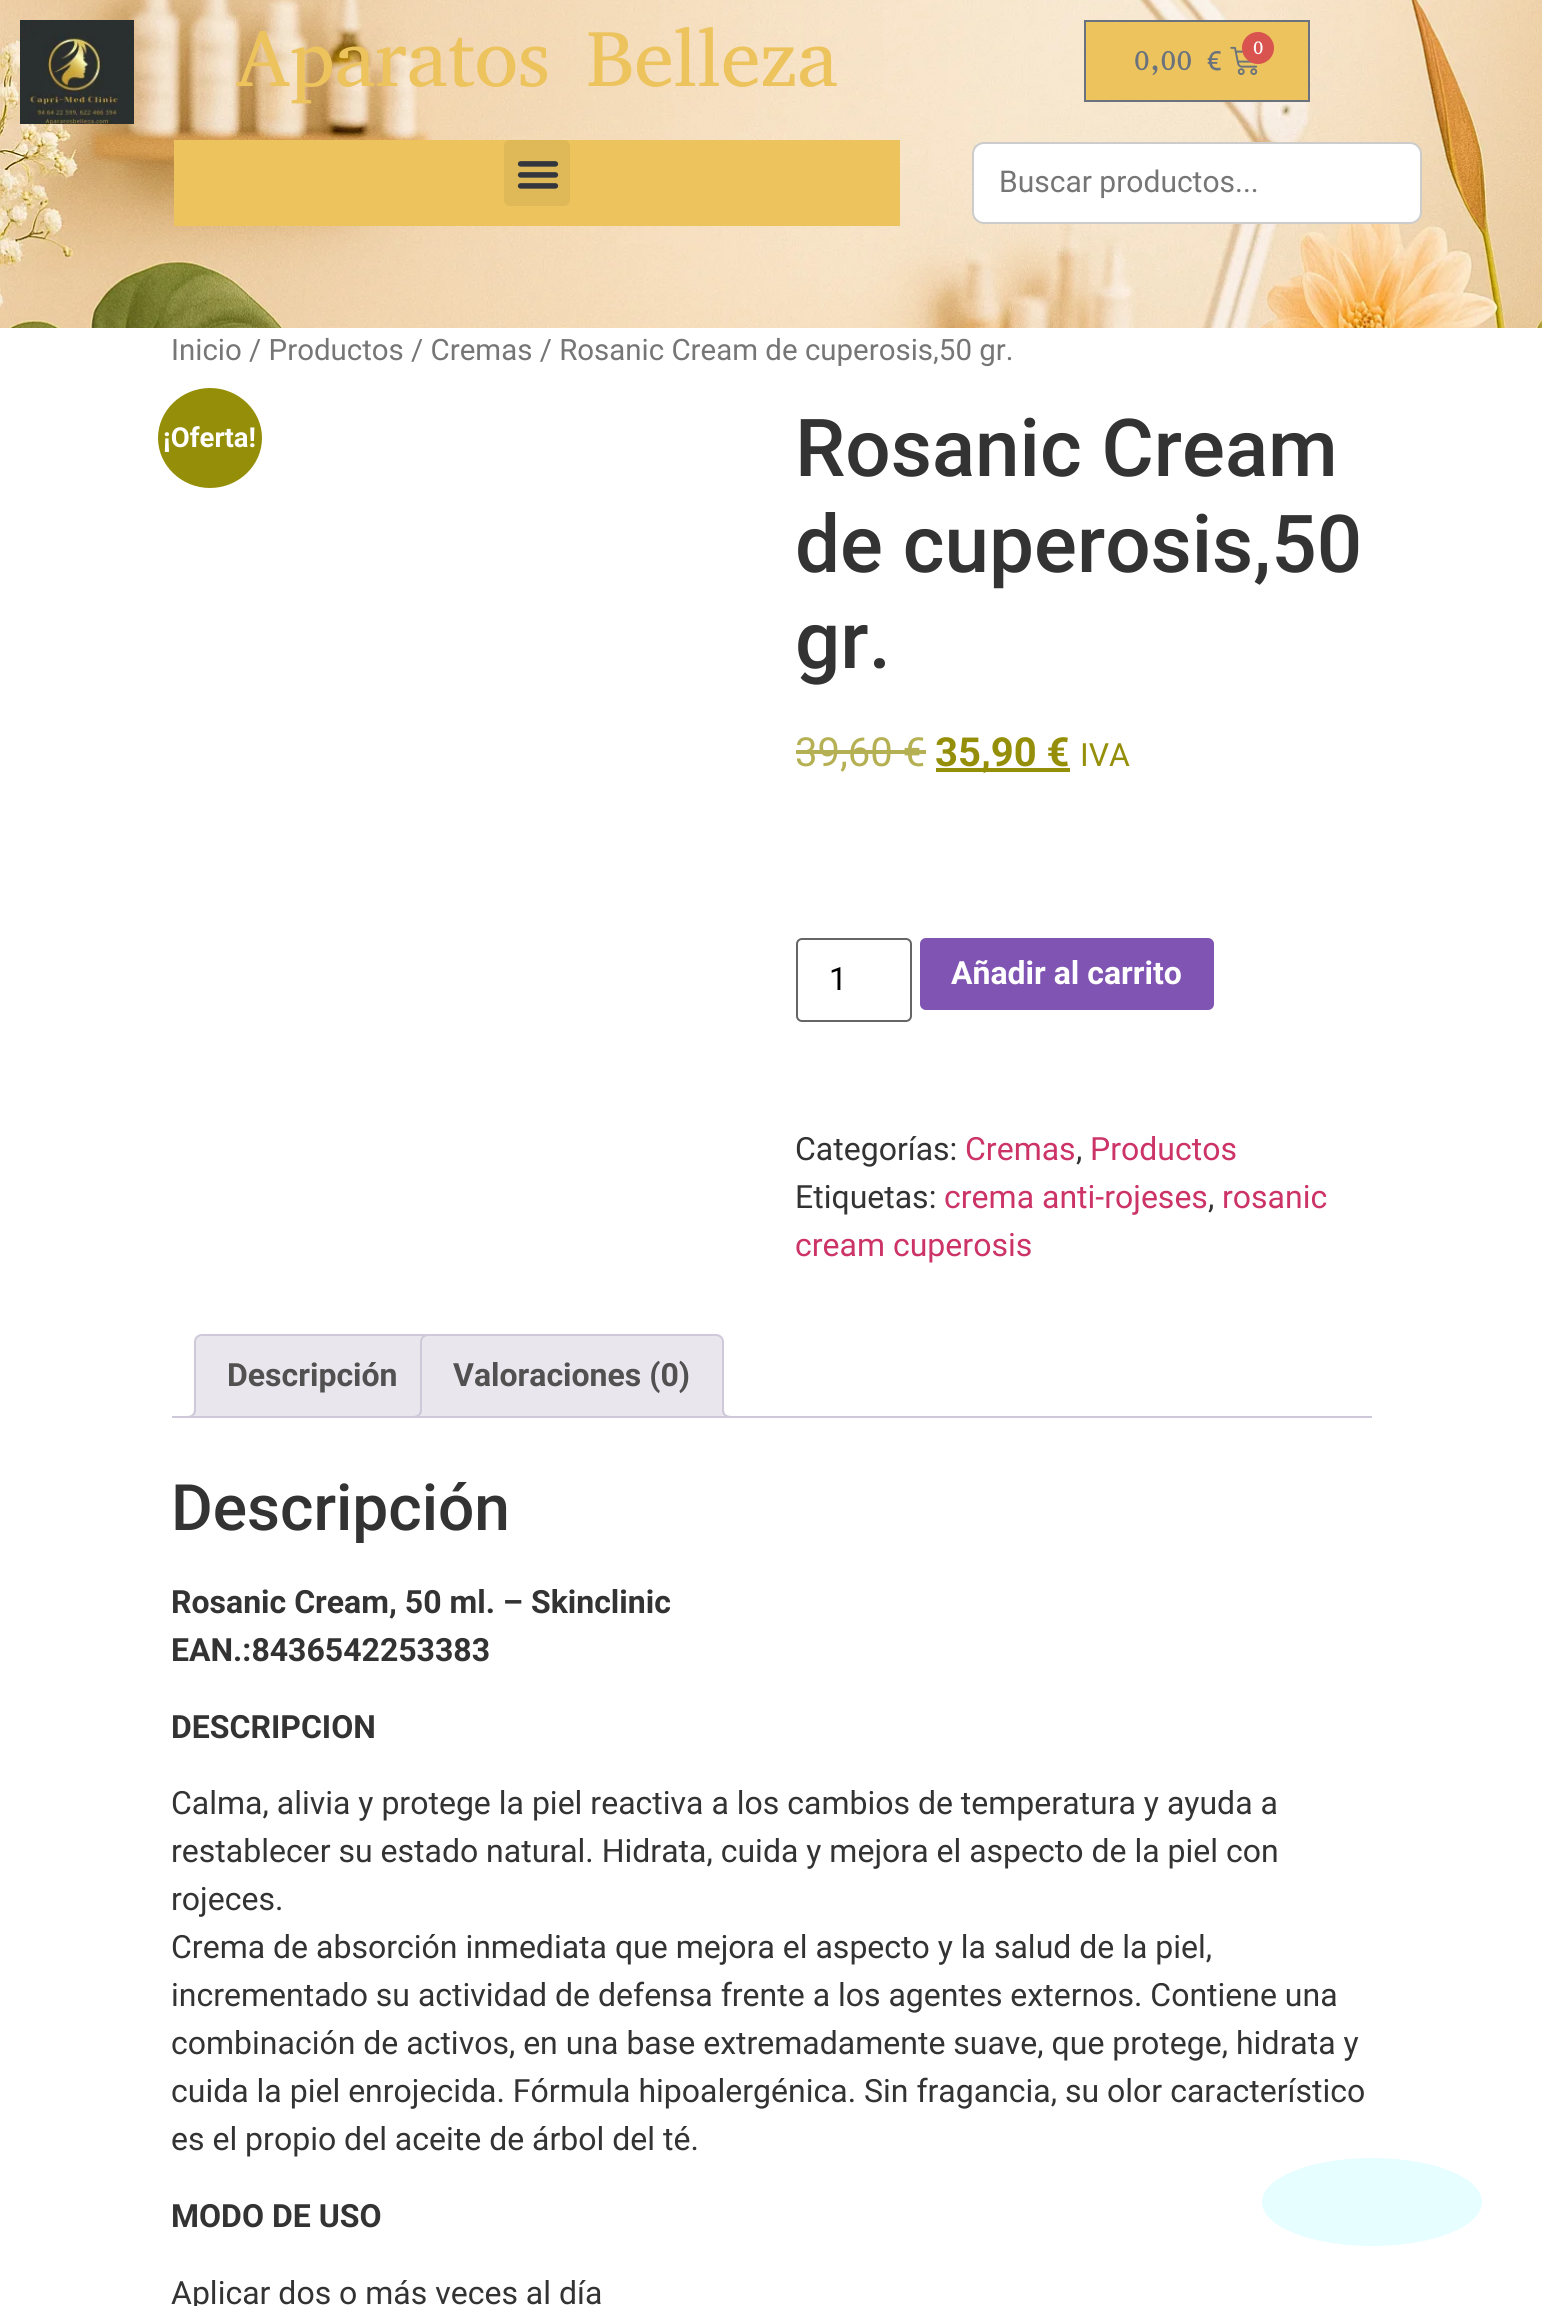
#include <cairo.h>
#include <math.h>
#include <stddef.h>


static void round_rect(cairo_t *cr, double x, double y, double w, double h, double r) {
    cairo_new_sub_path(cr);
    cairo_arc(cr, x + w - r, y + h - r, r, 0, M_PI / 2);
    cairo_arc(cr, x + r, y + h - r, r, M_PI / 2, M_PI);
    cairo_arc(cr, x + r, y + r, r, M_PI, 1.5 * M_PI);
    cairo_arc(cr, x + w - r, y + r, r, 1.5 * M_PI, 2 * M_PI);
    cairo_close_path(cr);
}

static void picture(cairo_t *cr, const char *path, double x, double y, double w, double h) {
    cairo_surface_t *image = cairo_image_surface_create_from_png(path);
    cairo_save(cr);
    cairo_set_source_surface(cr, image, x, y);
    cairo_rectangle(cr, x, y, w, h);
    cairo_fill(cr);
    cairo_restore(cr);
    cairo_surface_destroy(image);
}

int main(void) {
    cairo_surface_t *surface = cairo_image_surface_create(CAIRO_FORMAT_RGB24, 1542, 2306);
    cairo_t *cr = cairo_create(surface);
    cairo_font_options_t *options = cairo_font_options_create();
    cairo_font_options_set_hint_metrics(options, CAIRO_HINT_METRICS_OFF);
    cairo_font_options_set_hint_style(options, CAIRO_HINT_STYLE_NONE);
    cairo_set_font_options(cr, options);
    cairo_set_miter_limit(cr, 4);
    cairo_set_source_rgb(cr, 1, 1, 1);
    cairo_paint(cr);
    picture(cr, "img1.png", 0, 0, 1542, 328);
    picture(cr, "img2.png", 20, 20, 114, 104);
    cairo_select_font_face(cr, "Abyssinica SIL", CAIRO_FONT_SLANT_NORMAL, CAIRO_FONT_WEIGHT_NORMAL);
    cairo_set_font_size(cr, 80);
    cairo_set_source_rgb(cr, 0.922, 0.765, 0.365);
    cairo_move_to(cr, 236, 86);
    cairo_show_text(cr, "Aparatos Belleza");
    cairo_rectangle(cr, 174, 140, 726, 86);
    cairo_fill(cr);
    cairo_set_source_rgb(cr, 0.875, 0.725, 0.345);
    round_rect(cr, 504, 140, 66, 66, 6);
    cairo_fill(cr);
    picture(cr, "img3.png", 517, 161, 42, 28);
    cairo_set_source_rgb(cr, 0.922, 0.765, 0.365);
    cairo_rectangle(cr, 1085, 21, 224, 80);
    cairo_fill_preserve(cr);
    cairo_set_source_rgb(cr, 0.412, 0.447, 0.49);
    cairo_stroke(cr);
    picture(cr, "img4.png", 1230, 46, 28, 29);
    cairo_set_source_rgb(cr, 0.851, 0.325, 0.31);
    cairo_arc(cr, 1258, 48, 16, 0, 2 * M_PI);
    cairo_fill(cr);
    cairo_set_font_size(cr, 20);
    cairo_set_source_rgb(cr, 1, 1, 1);
    cairo_move_to(cr, 1253, 54);
    cairo_show_text(cr, "0");
    cairo_set_font_size(cr, 30);
    cairo_set_source_rgb(cr, 0.412, 0.447, 0.49);
    cairo_move_to(cr, 1134, 70);
    cairo_show_text(cr, "0,00 €");
    cairo_set_source_rgb(cr, 1, 1, 1);
    round_rect(cr, 973, 143, 448, 80, 11);
    cairo_fill_preserve(cr);
    cairo_set_source_rgb(cr, 0.8, 0.8, 0.8);
    cairo_stroke(cr);
    cairo_select_font_face(cr, "Roboto", CAIRO_FONT_SLANT_NORMAL, CAIRO_FONT_WEIGHT_NORMAL);
    cairo_set_source_rgb(cr, 0.463, 0.463, 0.463);
    cairo_move_to(cr, 999, 192);
    cairo_show_text(cr, "Buscar productos...");
    cairo_set_font_size(cr, 29.45);
    cairo_move_to(cr, 171, 360);
    cairo_show_text(cr, "Inicio / Productos / Cremas / Rosanic Cream de cuperosis,50 gr.");
    cairo_set_source_rgb(cr, 0.584, 0.557, 0.035);
    cairo_new_path(cr);
    cairo_move_to(cr, 210, 388);
    cairo_curve_to(cr, 238.5, 388, 262, 410.5, 262, 438);
    cairo_curve_to(cr, 262, 465.5, 238.5, 488, 210, 488);
    cairo_curve_to(cr, 181.5, 488, 158, 465.5, 158, 438);
    cairo_curve_to(cr, 158, 410.5, 181.5, 388, 210, 388);
    cairo_close_path(cr);
    cairo_fill(cr);
    cairo_select_font_face(cr, "Roboto", CAIRO_FONT_SLANT_NORMAL, CAIRO_FONT_WEIGHT_BOLD);
    cairo_set_font_size(cr, 27.5);
    cairo_set_source_rgb(cr, 1, 1, 1);
    cairo_move_to(cr, 163, 447);
    cairo_show_text(cr, "¡Oferta!");
    cairo_select_font_face(cr, "Roboto Medium", CAIRO_FONT_SLANT_NORMAL, CAIRO_FONT_WEIGHT_NORMAL);
    cairo_set_font_size(cr, 80);
    cairo_set_source_rgb(cr, 0.2, 0.2, 0.2);
    cairo_move_to(cr, 795, 476);
    cairo_show_text(cr, "Rosanic Cream");
    cairo_move_to(cr, 795, 572);
    cairo_show_text(cr, "de cuperosis,50");
    cairo_move_to(cr, 795, 668);
    cairo_show_text(cr, "gr.");
    cairo_select_font_face(cr, "Roboto", CAIRO_FONT_SLANT_NORMAL, CAIRO_FONT_WEIGHT_NORMAL);
    cairo_set_font_size(cr, 40);
    cairo_set_source_rgb(cr, 0.71, 0.69, 0.325);
    cairo_move_to(cr, 795, 766);
    cairo_show_text(cr, "39,60 €");
    cairo_rectangle(cr, 796, 750, 130, 4);
    cairo_fill(cr);
    cairo_set_source_rgb(cr, 0.584, 0.557, 0.035);
    cairo_rectangle(cr, 936, 768, 134, 4);
    cairo_fill(cr);
    cairo_select_font_face(cr, "Roboto", CAIRO_FONT_SLANT_NORMAL, CAIRO_FONT_WEIGHT_BOLD);
    cairo_move_to(cr, 935, 766);
    cairo_show_text(cr, "35,90 €");
    cairo_select_font_face(cr, "Roboto", CAIRO_FONT_SLANT_NORMAL, CAIRO_FONT_WEIGHT_NORMAL);
    cairo_set_font_size(cr, 32);
    cairo_move_to(cr, 1080, 766);
    cairo_show_text(cr, "IVA");
    round_rect(cr, 797, 939, 114, 82, 5);
    cairo_set_source_rgb(cr, 0.4, 0.4, 0.4);
    cairo_stroke(cr);
    cairo_set_source_rgb(cr, 0, 0, 0);
    cairo_move_to(cr, 829, 990);
    cairo_show_text(cr, "1");
    cairo_set_source_rgb(cr, 0.498, 0.329, 0.702);
    round_rect(cr, 920, 938, 294, 72, 6);
    cairo_fill(cr);
    cairo_select_font_face(cr, "Roboto", CAIRO_FONT_SLANT_NORMAL, CAIRO_FONT_WEIGHT_BOLD);
    cairo_set_source_rgb(cr, 1, 1, 1);
    cairo_move_to(cr, 951, 984);
    cairo_show_text(cr, "Añadir al carrito");
    cairo_select_font_face(cr, "Roboto", CAIRO_FONT_SLANT_NORMAL, CAIRO_FONT_WEIGHT_NORMAL);
    cairo_set_source_rgb(cr, 0.2, 0.2, 0.2);
    cairo_move_to(cr, 795, 1160);
    cairo_show_text(cr, "Categorías:");
    cairo_set_source_rgb(cr, 0.8, 0.2, 0.4);
    cairo_move_to(cr, 965, 1160);
    cairo_show_text(cr, "Cremas");
    cairo_set_source_rgb(cr, 0.2, 0.2, 0.2);
    cairo_move_to(cr, 1076, 1160);
    cairo_show_text(cr, ",");
    cairo_set_source_rgb(cr, 0.8, 0.2, 0.4);
    cairo_move_to(cr, 1090, 1160);
    cairo_show_text(cr, "Productos");
    cairo_set_source_rgb(cr, 0.2, 0.2, 0.2);
    cairo_move_to(cr, 795, 1208);
    cairo_show_text(cr, "Etiquetas:");
    cairo_set_source_rgb(cr, 0.8, 0.2, 0.4);
    cairo_move_to(cr, 944, 1208);
    cairo_show_text(cr, "crema anti-rojeses");
    cairo_set_source_rgb(cr, 0.2, 0.2, 0.2);
    cairo_move_to(cr, 1208, 1208);
    cairo_show_text(cr, ",");
    cairo_set_source_rgb(cr, 0.8, 0.2, 0.4);
    cairo_move_to(cr, 1222, 1208);
    cairo_show_text(cr, "rosanic");
    cairo_move_to(cr, 795, 1256);
    cairo_show_text(cr, "cream cuperosis");
    cairo_set_source_rgb(cr, 0.914, 0.902, 0.929);
    cairo_new_path(cr);
    cairo_move_to(cr, 202, 1335);
    cairo_line_to(cr, 424, 1335);
    cairo_curve_to(cr, 428, 1335, 431, 1338, 431, 1342);
    cairo_line_to(cr, 431, 1417);
    cairo_line_to(cr, 195, 1417);
    cairo_line_to(cr, 195, 1342);
    cairo_curve_to(cr, 195, 1338, 198, 1335, 202, 1335);
    cairo_close_path(cr);
    cairo_fill_preserve(cr);
    cairo_set_source_rgb(cr, 0.812, 0.784, 0.847);
    cairo_stroke(cr);
    cairo_select_font_face(cr, "Roboto", CAIRO_FONT_SLANT_NORMAL, CAIRO_FONT_WEIGHT_BOLD);
    cairo_set_source_rgb(cr, 0.318, 0.318, 0.318);
    cairo_move_to(cr, 227, 1386);
    cairo_show_text(cr, "Descripción");
    cairo_save(cr);
    cairo_rectangle(cr, 172, 1334, 1200, 84);
    cairo_clip(cr);
    cairo_set_source_rgb(cr, 0.914, 0.902, 0.929);
    cairo_new_path(cr);
    cairo_move_to(cr, 190, 1417.5);
    cairo_line_to(cr, 190, 1422);
    cairo_curve_to(cr, 197, 1422, 200, 1419, 200, 1412);
    cairo_line_to(cr, 195.5, 1412);
    cairo_curve_to(cr, 195, 1415, 193, 1417, 190, 1417.5);
    cairo_close_path(cr);
    cairo_fill(cr);
    cairo_restore(cr);
    cairo_set_source_rgb(cr, 0.812, 0.784, 0.847);
    cairo_set_fill_rule(cr, CAIRO_FILL_RULE_EVEN_ODD);
    cairo_new_path(cr);
    cairo_move_to(cr, 186, 1408);
    cairo_line_to(cr, 196, 1408);
    cairo_curve_to(cr, 196, 1415, 193, 1418, 186, 1418);
    cairo_close_path(cr);
    cairo_move_to(cr, 186, 1408);
    cairo_line_to(cr, 194, 1408);
    cairo_curve_to(cr, 194, 1414, 192, 1416, 186, 1416);
    cairo_close_path(cr);
    cairo_fill(cr);
    cairo_set_source_rgb(cr, 0.914, 0.902, 0.929);
    cairo_new_path(cr);
    cairo_move_to(cr, 428, 1335);
    cairo_line_to(cr, 716, 1335);
    cairo_curve_to(cr, 720, 1335, 723, 1338, 723, 1342);
    cairo_line_to(cr, 723, 1417);
    cairo_line_to(cr, 421, 1417);
    cairo_line_to(cr, 421, 1342);
    cairo_curve_to(cr, 421, 1338, 424, 1335, 428, 1335);
    cairo_close_path(cr);
    cairo_fill_preserve(cr);
    cairo_set_source_rgb(cr, 0.812, 0.784, 0.847);
    cairo_stroke(cr);
    cairo_set_source_rgb(cr, 0.318, 0.318, 0.318);
    cairo_move_to(cr, 453, 1386);
    cairo_show_text(cr, "Valoraciones (0)");
    cairo_save(cr);
    cairo_set_fill_rule(cr, CAIRO_FILL_RULE_WINDING);
    cairo_rectangle(cr, 172, 1334, 1200, 84);
    cairo_clip(cr);
    cairo_set_source_rgb(cr, 0.914, 0.902, 0.929);
    cairo_new_path(cr);
    cairo_move_to(cr, 416, 1417.5);
    cairo_line_to(cr, 416, 1422);
    cairo_curve_to(cr, 423, 1422, 426, 1419, 426, 1412);
    cairo_line_to(cr, 421.5, 1412);
    cairo_curve_to(cr, 421, 1415, 419, 1417, 416, 1417.5);
    cairo_close_path(cr);
    cairo_fill(cr);
    cairo_restore(cr);
    cairo_set_source_rgb(cr, 0.812, 0.784, 0.847);
    cairo_new_path(cr);
    cairo_move_to(cr, 412, 1408);
    cairo_line_to(cr, 422, 1408);
    cairo_curve_to(cr, 422, 1415, 419, 1418, 412, 1418);
    cairo_close_path(cr);
    cairo_move_to(cr, 412, 1408);
    cairo_line_to(cr, 420, 1408);
    cairo_curve_to(cr, 420, 1414, 418, 1416, 412, 1416);
    cairo_close_path(cr);
    cairo_fill(cr);
    cairo_save(cr);
    cairo_set_fill_rule(cr, CAIRO_FILL_RULE_WINDING);
    cairo_rectangle(cr, 172, 1334, 1200, 84);
    cairo_clip(cr);
    cairo_set_source_rgb(cr, 0.914, 0.902, 0.929);
    cairo_new_path(cr);
    cairo_move_to(cr, 718, 1412);
    cairo_curve_to(cr, 718, 1419, 721, 1422, 728, 1422);
    cairo_line_to(cr, 728, 1417.5);
    cairo_curve_to(cr, 725, 1417, 723, 1415, 722.5, 1412);
    cairo_close_path(cr);
    cairo_fill(cr);
    cairo_restore(cr);
    cairo_new_path(cr);
    cairo_move_to(cr, 722, 1408);
    cairo_line_to(cr, 732, 1408);
    cairo_line_to(cr, 732, 1418);
    cairo_curve_to(cr, 727, 1418, 722, 1416, 722, 1410);
    cairo_close_path(cr);
    cairo_move_to(cr, 724, 1408);
    cairo_line_to(cr, 732, 1408);
    cairo_line_to(cr, 732, 1416);
    cairo_curve_to(cr, 728, 1416, 724, 1415, 724, 1410);
    cairo_close_path(cr);
    cairo_fill(cr);
    cairo_rectangle(cr, 172, 1416, 1200, 2);
    cairo_fill(cr);
    cairo_select_font_face(cr, "Roboto Medium", CAIRO_FONT_SLANT_NORMAL, CAIRO_FONT_WEIGHT_NORMAL);
    cairo_set_font_size(cr, 64);
    cairo_set_source_rgb(cr, 0.2, 0.2, 0.2);
    cairo_move_to(cr, 171, 1530);
    cairo_show_text(cr, "Descripción");
    cairo_select_font_face(cr, "Roboto", CAIRO_FONT_SLANT_NORMAL, CAIRO_FONT_WEIGHT_BOLD);
    cairo_set_font_size(cr, 32);
    cairo_move_to(cr, 171, 1613);
    cairo_show_text(cr, "Rosanic Cream, 50 ml. – Skinclinic");
    cairo_move_to(cr, 171, 1661);
    cairo_show_text(cr, "EAN.:8436542253383");
    cairo_move_to(cr, 171, 1738);
    cairo_show_text(cr, "DESCRIPCION");
    cairo_select_font_face(cr, "Roboto", CAIRO_FONT_SLANT_NORMAL, CAIRO_FONT_WEIGHT_NORMAL);
    cairo_move_to(cr, 171, 1814);
    cairo_show_text(cr, "Calma, alivia y protege la piel reactiva a los cambios de temperatura y ayuda a");
    cairo_move_to(cr, 171, 1862);
    cairo_show_text(cr, "restablecer su estado natural. Hidrata, cuida y mejora el aspecto de la piel con");
    cairo_move_to(cr, 171, 1910);
    cairo_show_text(cr, "rojeces.");
    cairo_move_to(cr, 171, 1958);
    cairo_show_text(cr, "Crema de absorción inmediata que mejora el aspecto y la salud de la piel,");
    cairo_move_to(cr, 171, 2006);
    cairo_show_text(cr, "incrementado su actividad de defensa frente a los agentes externos. Contiene una");
    cairo_move_to(cr, 171, 2054);
    cairo_show_text(cr, "combinación de activos, en una base extremadamente suave, que protege, hidrata y");
    cairo_move_to(cr, 171, 2102);
    cairo_show_text(cr, "cuida la piel enrojecida. Fórmula hipoalergénica. Sin fragancia, su olor característico");
    cairo_move_to(cr, 171, 2150);
    cairo_show_text(cr, "es el propio del aceite de árbol del té.");
    cairo_select_font_face(cr, "Roboto", CAIRO_FONT_SLANT_NORMAL, CAIRO_FONT_WEIGHT_BOLD);
    cairo_move_to(cr, 171, 2227);
    cairo_show_text(cr, "MODO DE USO");
    cairo_select_font_face(cr, "Roboto", CAIRO_FONT_SLANT_NORMAL, CAIRO_FONT_WEIGHT_NORMAL);
    cairo_move_to(cr, 171, 2304);
    cairo_show_text(cr, "Aplicar dos o más veces al día");
    cairo_set_source_rgb(cr, 0.902, 0.996, 1);
    cairo_new_path(cr);
    cairo_move_to(cr, 1372, 2158);
    cairo_curve_to(cr, 1433, 2158, 1482, 2177.5, 1482, 2202);
    cairo_curve_to(cr, 1482, 2226.5, 1433, 2246, 1372, 2246);
    cairo_curve_to(cr, 1311, 2246, 1262, 2226.5, 1262, 2202);
    cairo_curve_to(cr, 1262, 2177.5, 1311, 2158, 1372, 2158);
    cairo_close_path(cr);
    cairo_fill(cr);
    cairo_surface_write_to_png(surface, "page.png");
    cairo_font_options_destroy(options);
    cairo_destroy(cr);
    cairo_surface_destroy(surface);
    return 0;
}
